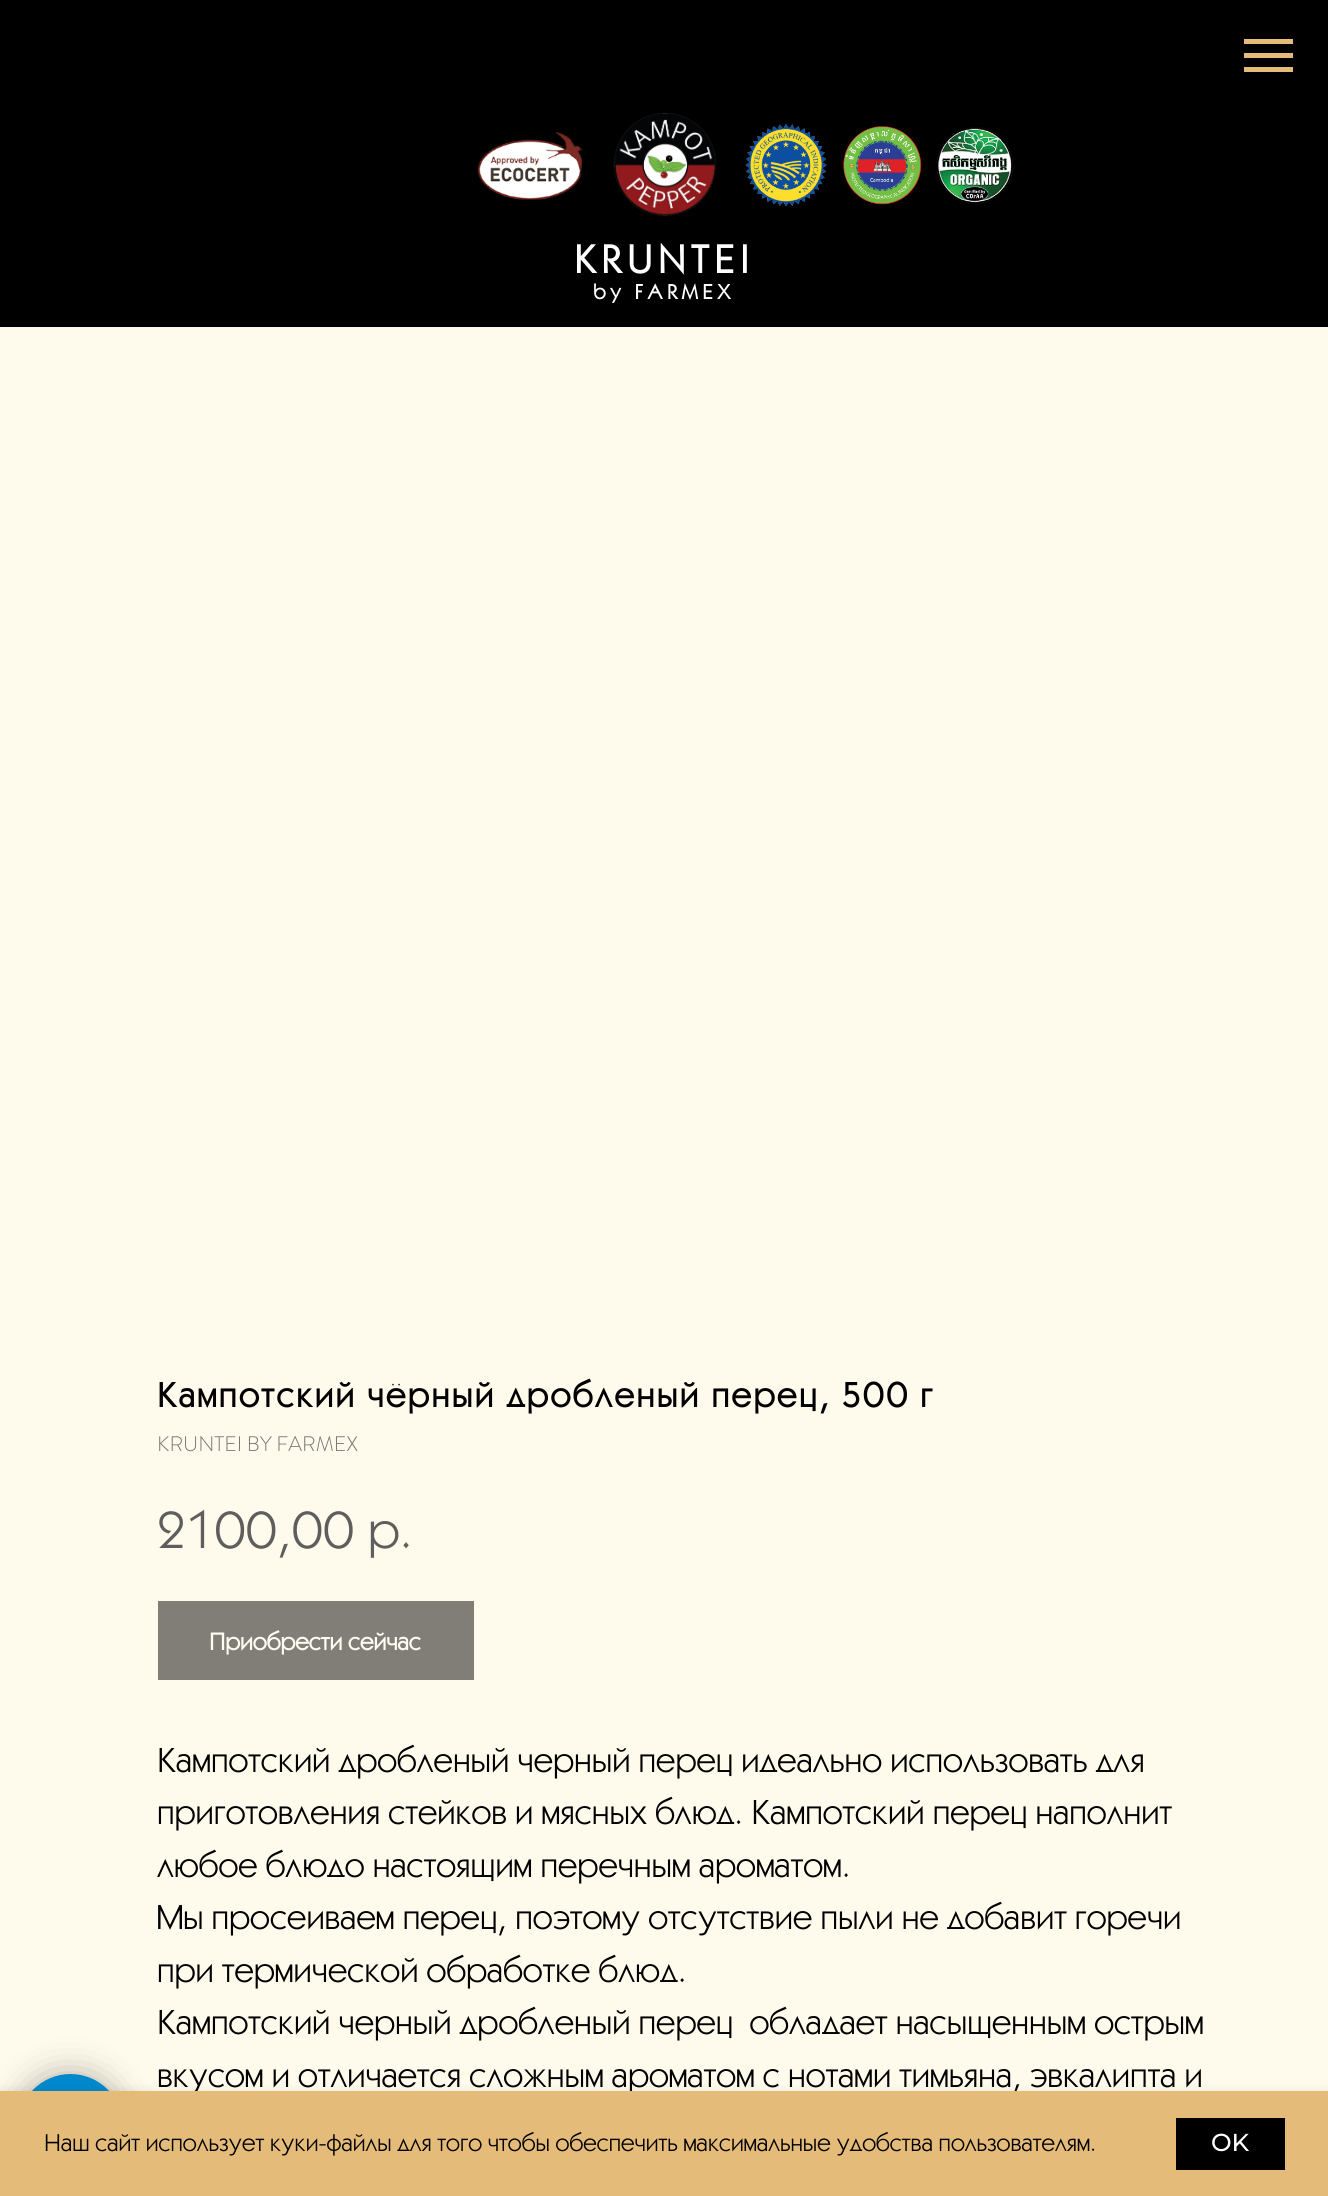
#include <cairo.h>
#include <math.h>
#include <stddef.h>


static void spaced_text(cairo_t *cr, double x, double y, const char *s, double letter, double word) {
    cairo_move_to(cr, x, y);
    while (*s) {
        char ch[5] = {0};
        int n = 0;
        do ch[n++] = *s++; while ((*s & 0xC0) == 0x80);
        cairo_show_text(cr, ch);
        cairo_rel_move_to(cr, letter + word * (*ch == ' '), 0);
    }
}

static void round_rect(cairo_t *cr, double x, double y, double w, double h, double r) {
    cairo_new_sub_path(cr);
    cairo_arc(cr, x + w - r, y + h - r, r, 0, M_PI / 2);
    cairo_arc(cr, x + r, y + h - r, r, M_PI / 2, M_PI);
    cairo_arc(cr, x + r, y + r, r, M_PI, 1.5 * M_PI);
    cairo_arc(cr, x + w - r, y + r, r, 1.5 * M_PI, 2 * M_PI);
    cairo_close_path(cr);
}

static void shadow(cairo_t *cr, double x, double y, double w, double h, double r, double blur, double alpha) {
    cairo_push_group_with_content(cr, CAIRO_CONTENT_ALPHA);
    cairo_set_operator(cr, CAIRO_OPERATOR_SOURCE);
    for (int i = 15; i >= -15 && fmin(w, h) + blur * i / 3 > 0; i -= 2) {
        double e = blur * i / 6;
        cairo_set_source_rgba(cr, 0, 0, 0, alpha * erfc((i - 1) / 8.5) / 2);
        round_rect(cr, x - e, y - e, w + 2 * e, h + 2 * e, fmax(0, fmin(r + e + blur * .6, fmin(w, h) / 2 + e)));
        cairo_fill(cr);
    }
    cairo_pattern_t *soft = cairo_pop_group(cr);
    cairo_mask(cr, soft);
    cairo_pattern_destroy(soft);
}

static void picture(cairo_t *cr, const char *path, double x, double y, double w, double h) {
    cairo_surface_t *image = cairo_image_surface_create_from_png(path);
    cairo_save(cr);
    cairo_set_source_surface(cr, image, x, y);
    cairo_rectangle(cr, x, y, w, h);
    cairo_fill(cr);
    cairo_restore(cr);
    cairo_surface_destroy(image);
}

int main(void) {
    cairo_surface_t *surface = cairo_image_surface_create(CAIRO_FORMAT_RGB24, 1328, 2196);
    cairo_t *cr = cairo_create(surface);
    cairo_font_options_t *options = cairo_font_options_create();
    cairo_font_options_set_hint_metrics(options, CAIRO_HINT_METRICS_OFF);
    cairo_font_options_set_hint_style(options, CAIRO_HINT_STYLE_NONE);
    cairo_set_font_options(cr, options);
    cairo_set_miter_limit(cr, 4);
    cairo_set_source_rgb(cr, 1, 0.984, 0.922);
    cairo_paint(cr);
    cairo_set_source_rgb(cr, 0, 0, 0);
    cairo_rectangle(cr, 0, 0, 1328, 327);
    cairo_fill(cr);
    cairo_set_source_rgb(cr, 0.898, 0.733, 0.475);
    cairo_rectangle(cr, 1244, 39, 49, 5);
    cairo_fill(cr);
    cairo_rectangle(cr, 1244, 53, 49, 5);
    cairo_fill(cr);
    cairo_rectangle(cr, 1244, 67, 49, 5);
    cairo_fill(cr);
    picture(cr, "img1.png", 477, 132, 105, 68);
    picture(cr, "img2.png", 613, 113, 103, 111);
    picture(cr, "img3.png", 745, 124, 82, 83);
    picture(cr, "img4.png", 843, 126, 78, 79);
    picture(cr, "img5.png", 936, 127, 77, 77);
    cairo_select_font_face(cr, "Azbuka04", CAIRO_FONT_SLANT_NORMAL, CAIRO_FONT_WEIGHT_BOLD);
    cairo_set_font_size(cr, 40.25);
    cairo_set_source_rgb(cr, 1, 1, 1);
    spaced_text(cr, 574, 273, "KRUNTEI", 5.25, 0);
    cairo_set_font_size(cr, 21);
    spaced_text(cr, 593, 299, "by FARMEX", 4.4, 0);
    cairo_set_font_size(cr, 35);
    cairo_set_source_rgb(cr, 0, 0, 0);
    spaced_text(cr, 157, 1407, "Кампотский чёрный дробленый перец, 500 г", 2.6, 0);
    cairo_select_font_face(cr, "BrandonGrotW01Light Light", CAIRO_FONT_SLANT_NORMAL, CAIRO_FONT_WEIGHT_NORMAL);
    cairo_set_font_size(cr, 21);
    cairo_set_source_rgb(cr, 0.467, 0.467, 0.467);
    cairo_move_to(cr, 157, 1451);
    cairo_show_text(cr, "KRUNTEI BY FARMEX");
    cairo_select_font_face(cr, "Azbuka04", CAIRO_FONT_SLANT_NORMAL, CAIRO_FONT_WEIGHT_NORMAL);
    cairo_set_font_size(cr, 52.5);
    cairo_set_source_rgb(cr, 0.369, 0.369, 0.369);
    cairo_move_to(cr, 157, 1548);
    cairo_show_text(cr, "2100,00");
    cairo_move_to(cr, 368, 1548);
    cairo_show_text(cr, "р.");
    cairo_set_source_rgb(cr, 0.502, 0.494, 0.463);
    cairo_rectangle(cr, 158, 1601, 316, 79);
    cairo_fill(cr);
    cairo_select_font_face(cr, "Azbuka04", CAIRO_FONT_SLANT_NORMAL, CAIRO_FONT_WEIGHT_BOLD);
    cairo_set_font_size(cr, 24.5);
    cairo_set_source_rgb(cr, 1, 0.988, 0.949);
    cairo_move_to(cr, 209, 1650);
    cairo_show_text(cr, "Приобрести сейчас");
    cairo_select_font_face(cr, "Azbuka04", CAIRO_FONT_SLANT_NORMAL, CAIRO_FONT_WEIGHT_NORMAL);
    cairo_set_font_size(cr, 35);
    cairo_set_source_rgb(cr, 0, 0, 0);
    cairo_move_to(cr, 157, 1772);
    cairo_show_text(cr, "Кампотский дробленый черный перец идеально использовать для");
    cairo_move_to(cr, 157, 1824);
    cairo_show_text(cr, "приготовления стейков и мясных блюд. Кампотский перец наполнит");
    cairo_move_to(cr, 157, 1877);
    cairo_show_text(cr, "любое блюдо настоящим перечным ароматом.");
    cairo_move_to(cr, 157, 1929);
    cairo_show_text(cr, "Мы просеиваем перец, поэтому отсутствие пыли не добавит горечи");
    cairo_move_to(cr, 157, 1982);
    cairo_show_text(cr, "при термической обработке блюд.");
    cairo_move_to(cr, 157, 2034);
    cairo_show_text(cr, "Кампотский черный дробленый перец  обладает насыщенным острым");
    cairo_move_to(cr, 157, 2087);
    cairo_show_text(cr, "вкусом и отличается сложным ароматом с нотами тимьяна, эвкалипта и");
    cairo_set_source_rgb(cr, 0, 0, 0);
    shadow(cr, 18, 2074, 105, 105, 52.5, 17.5, 0.3);
    cairo_set_source_rgb(cr, 0, 0.533, 0.8);
    cairo_arc(cr, 70.5, 2126.5, 52.5, 0, 2 * M_PI);
    cairo_fill(cr);
    cairo_set_source_rgb(cr, 0, 0, 0);
    shadow(cr, 0, 2091, 1328, 105, 0, 4.5, 0.1);
    cairo_set_source_rgb(cr, 0.898, 0.733, 0.475);
    cairo_rectangle(cr, 0, 2091, 1328, 105);
    cairo_fill(cr);
    cairo_set_font_size(cr, 24.5);
    cairo_set_source_rgb(cr, 0, 0, 0);
    cairo_move_to(cr, 44, 2151);
    cairo_show_text(cr, "Наш сайт использует куки-файлы для того чтобы обеспечить максимальные удобства пользователям.");
    cairo_rectangle(cr, 1176, 2118, 109, 52);
    cairo_fill(cr);
    cairo_select_font_face(cr, "Montserrat Medium", CAIRO_FONT_SLANT_NORMAL, CAIRO_FONT_WEIGHT_NORMAL);
    cairo_set_source_rgb(cr, 1, 1, 1);
    cairo_move_to(cr, 1211, 2151);
    cairo_show_text(cr, "OK");
    cairo_surface_write_to_png(surface, "page.png");
    cairo_font_options_destroy(options);
    cairo_destroy(cr);
    cairo_surface_destroy(surface);
    return 0;
}
